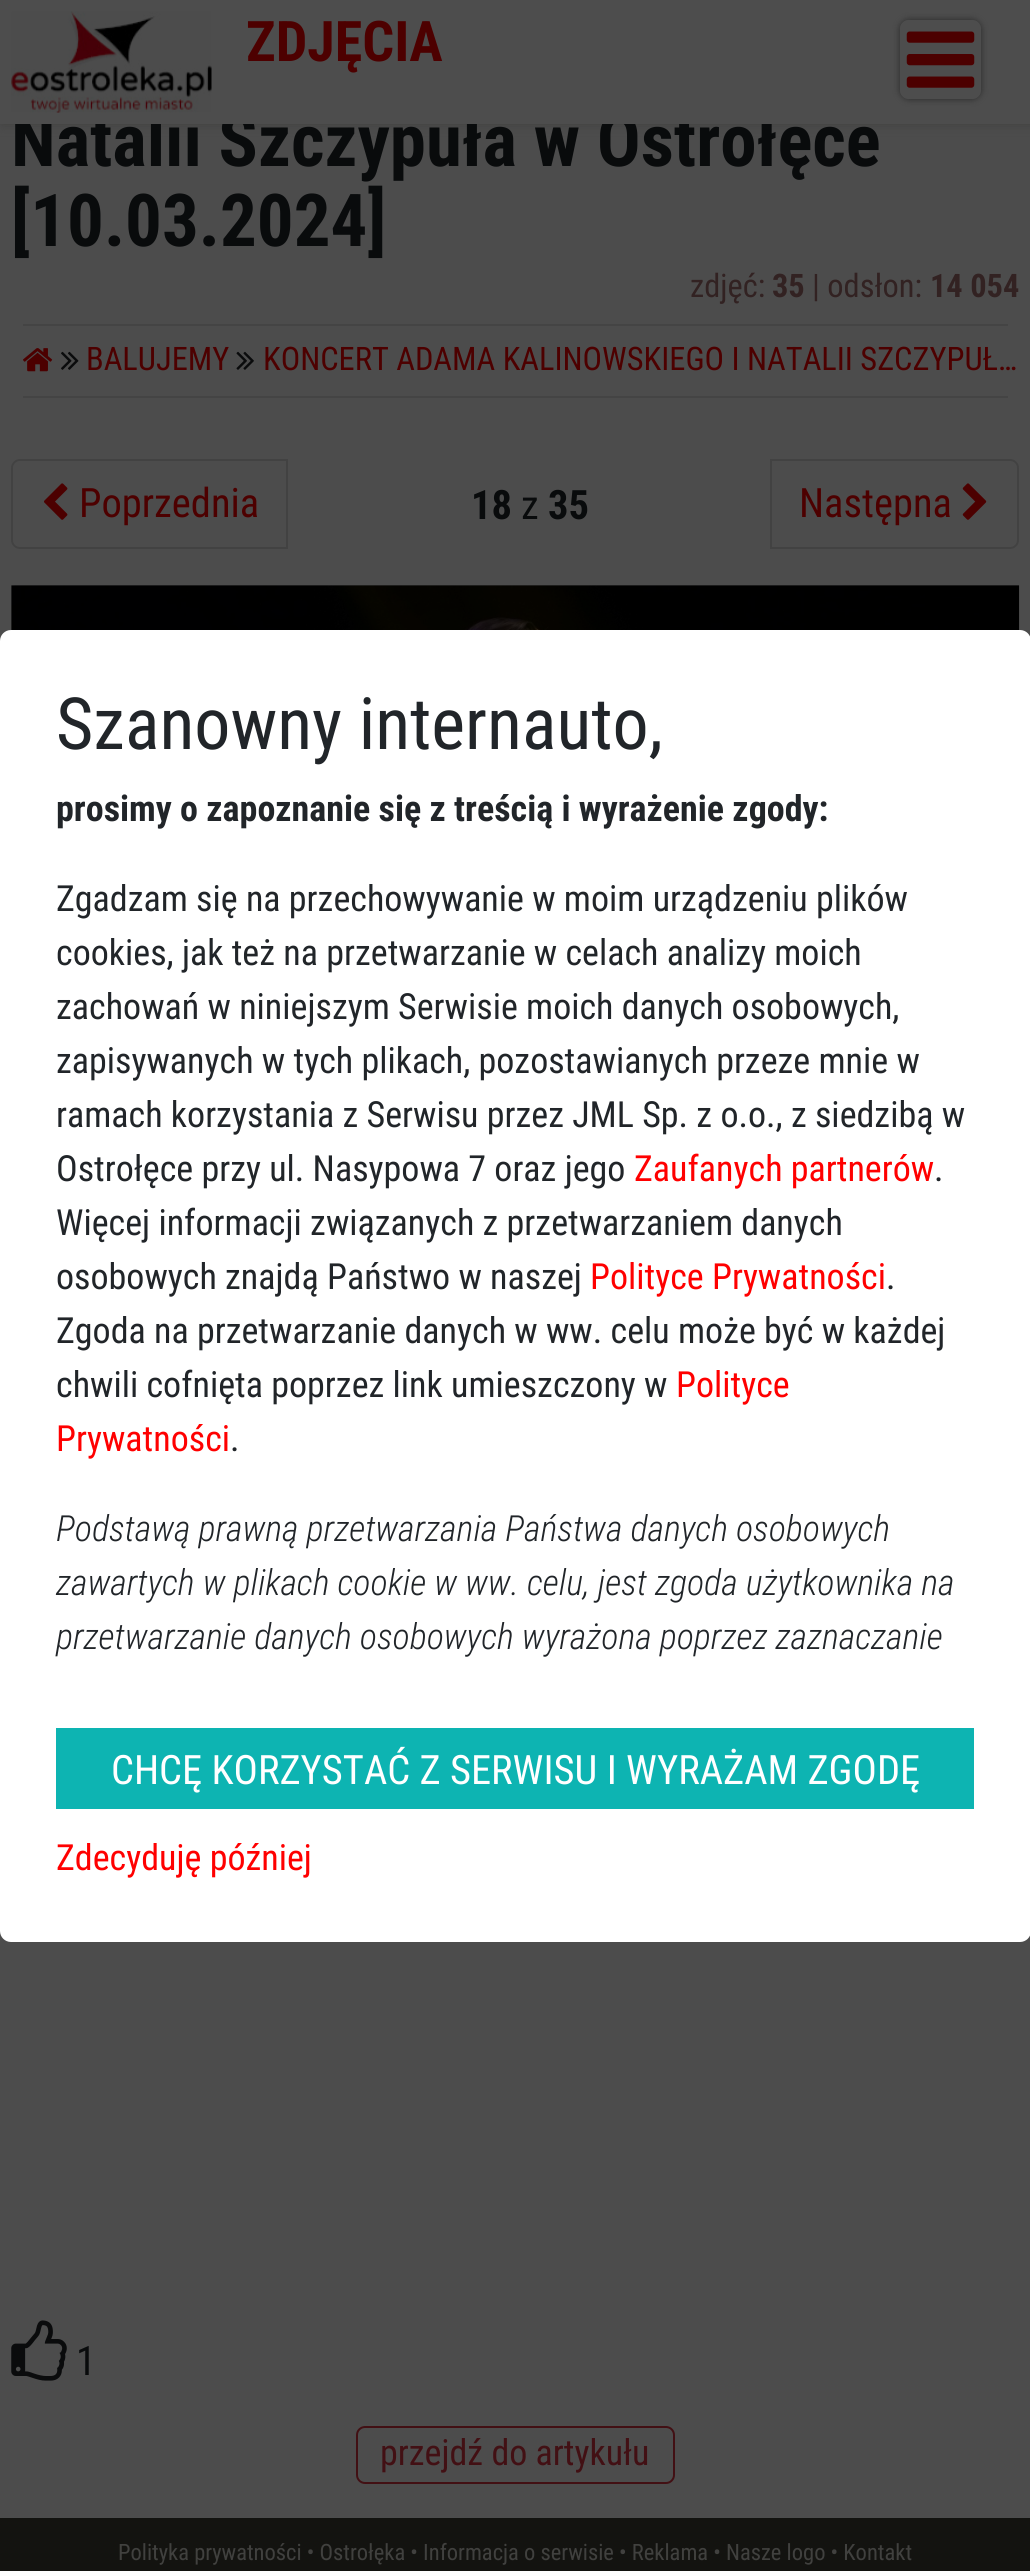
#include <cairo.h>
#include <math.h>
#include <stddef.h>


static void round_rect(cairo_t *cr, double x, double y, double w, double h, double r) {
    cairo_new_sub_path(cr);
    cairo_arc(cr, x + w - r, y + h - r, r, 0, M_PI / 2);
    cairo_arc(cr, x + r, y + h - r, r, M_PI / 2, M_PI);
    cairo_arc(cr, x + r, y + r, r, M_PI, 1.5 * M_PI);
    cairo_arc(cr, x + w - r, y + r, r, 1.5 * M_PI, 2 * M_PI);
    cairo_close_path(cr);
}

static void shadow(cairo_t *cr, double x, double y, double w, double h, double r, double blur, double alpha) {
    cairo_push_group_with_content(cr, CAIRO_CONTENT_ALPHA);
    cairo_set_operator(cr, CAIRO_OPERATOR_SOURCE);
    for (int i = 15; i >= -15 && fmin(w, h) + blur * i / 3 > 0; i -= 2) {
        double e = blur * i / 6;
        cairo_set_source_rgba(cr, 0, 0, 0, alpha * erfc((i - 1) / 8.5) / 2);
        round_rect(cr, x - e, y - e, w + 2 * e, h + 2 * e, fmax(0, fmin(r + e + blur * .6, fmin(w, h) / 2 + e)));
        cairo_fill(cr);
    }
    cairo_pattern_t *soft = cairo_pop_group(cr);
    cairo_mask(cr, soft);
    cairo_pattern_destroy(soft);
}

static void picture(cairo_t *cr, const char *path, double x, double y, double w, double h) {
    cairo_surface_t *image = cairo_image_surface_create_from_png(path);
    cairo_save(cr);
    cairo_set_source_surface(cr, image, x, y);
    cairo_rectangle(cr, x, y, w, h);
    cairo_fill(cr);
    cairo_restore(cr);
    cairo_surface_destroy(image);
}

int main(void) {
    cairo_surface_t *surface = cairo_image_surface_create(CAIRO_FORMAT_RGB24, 1030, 2571);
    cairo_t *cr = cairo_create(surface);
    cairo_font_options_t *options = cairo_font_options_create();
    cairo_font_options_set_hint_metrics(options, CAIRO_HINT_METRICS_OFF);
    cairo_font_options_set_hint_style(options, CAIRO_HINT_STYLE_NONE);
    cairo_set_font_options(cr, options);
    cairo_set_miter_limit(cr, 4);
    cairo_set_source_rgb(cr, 0.298, 0.298, 0.298);
    cairo_paint(cr);
    cairo_set_source_rgb(cr, 0.235, 0.235, 0.231);
    shadow(cr, 2, 0, 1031, 124, 0, 5.5, 0.8);
    cairo_select_font_face(cr, "Roboto Condensed", CAIRO_FONT_SLANT_NORMAL, CAIRO_FONT_WEIGHT_BOLD);
    cairo_set_font_size(cr, 72.9);
    cairo_set_source_rgb(cr, 0.039, 0.043, 0.047);
    cairo_move_to(cr, 11, 166);
    cairo_show_text(cr, "Natalii Szczypuła w Ostrołęce");
    cairo_set_source_rgb(cr, 0.302, 0.302, 0.302);
    cairo_rectangle(cr, 0, 0, 1030, 124);
    cairo_fill(cr);
    picture(cr, "img1.png", 11, 11, 201, 102);
    cairo_set_font_size(cr, 56);
    cairo_set_source_rgb(cr, 0.302, 0, 0);
    cairo_move_to(cr, 246, 61);
    cairo_show_text(cr, "ZDJĘCIA");
    cairo_save(cr);
    cairo_set_fill_rule(cr, CAIRO_FILL_RULE_EVEN_ODD);
    cairo_new_path(cr);
    cairo_move_to(cr, 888, 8);
    cairo_line_to(cr, 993, 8);
    cairo_line_to(cr, 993, 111);
    cairo_line_to(cr, 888, 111);
    cairo_close_path(cr);
    cairo_move_to(cr, 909, 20);
    cairo_line_to(cr, 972, 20);
    cairo_curve_to(cr, 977, 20, 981, 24, 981, 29);
    cairo_line_to(cr, 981, 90);
    cairo_curve_to(cr, 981, 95, 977, 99, 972, 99);
    cairo_line_to(cr, 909, 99);
    cairo_curve_to(cr, 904, 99, 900, 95, 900, 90);
    cairo_line_to(cr, 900, 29);
    cairo_curve_to(cr, 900, 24, 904, 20, 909, 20);
    cairo_close_path(cr);
    cairo_clip(cr);
    cairo_set_source_rgb(cr, 0.161, 0.161, 0.161);
    shadow(cr, 900, 20, 81, 79, 9, 3.5, 1);
    cairo_restore(cr);
    picture(cr, "img2.png", 906, 31, 69, 57);
    cairo_set_font_size(cr, 72.9);
    cairo_set_source_rgb(cr, 0.039, 0.043, 0.047);
    cairo_move_to(cr, 11, 246);
    cairo_show_text(cr, "[10.03.2024]");
    cairo_select_font_face(cr, "Roboto Condensed", CAIRO_FONT_SLANT_NORMAL, CAIRO_FONT_WEIGHT_NORMAL);
    cairo_set_font_size(cr, 32.4);
    cairo_set_source_rgb(cr, 0.196, 0.133, 0.133);
    cairo_move_to(cr, 690, 297);
    cairo_show_text(cr, "zdjęć:");
    cairo_select_font_face(cr, "Roboto Condensed", CAIRO_FONT_SLANT_NORMAL, CAIRO_FONT_WEIGHT_BOLD);
    cairo_move_to(cr, 772, 297);
    cairo_show_text(cr, "35");
    cairo_select_font_face(cr, "Roboto Condensed", CAIRO_FONT_SLANT_NORMAL, CAIRO_FONT_WEIGHT_NORMAL);
    cairo_move_to(cr, 812, 297);
    cairo_show_text(cr, "| odsłon:");
    cairo_select_font_face(cr, "Roboto Condensed", CAIRO_FONT_SLANT_NORMAL, CAIRO_FONT_WEIGHT_BOLD);
    cairo_move_to(cr, 930, 297);
    cairo_show_text(cr, "14 054");
    cairo_set_source_rgb(cr, 0.267, 0.267, 0.267);
    cairo_rectangle(cr, 23, 324, 985, 2);
    cairo_fill(cr);
    picture(cr, "img3.png", 23, 348, 30, 24);
    picture(cr, "img4.png", 61, 351, 18, 19);
    cairo_select_font_face(cr, "Roboto Condensed", CAIRO_FONT_SLANT_NORMAL, CAIRO_FONT_WEIGHT_NORMAL);
    cairo_set_source_rgb(cr, 0.302, 0, 0);
    cairo_move_to(cr, 86, 370);
    cairo_show_text(cr, "BALUJEMY");
    picture(cr, "img5.png", 236, 351, 18, 19);
    cairo_move_to(cr, 263, 370);
    cairo_show_text(cr, "KONCERT ADAMA KALINOWSKIEGO I NATALII SZCZYPUŁ…");
    cairo_set_source_rgb(cr, 0.267, 0.267, 0.267);
    cairo_rectangle(cr, 23, 396, 985, 2);
    cairo_fill(cr);
    cairo_new_path(cr);
    cairo_move_to(cr, 20, 460);
    cairo_line_to(cr, 287, 460);
    cairo_line_to(cr, 287, 548);
    cairo_line_to(cr, 20, 548);
    cairo_curve_to(cr, 15.5, 548, 12, 544.5, 12, 540);
    cairo_line_to(cr, 12, 468);
    cairo_curve_to(cr, 12, 463.5, 15.5, 460, 20, 460);
    cairo_close_path(cr);
    cairo_set_source_rgb(cr, 0.259, 0.259, 0.259);
    cairo_stroke(cr);
    picture(cr, "img6.png", 44, 483, 24, 37);
    cairo_set_font_size(cr, 40.5);
    cairo_set_source_rgb(cr, 0.302, 0, 0);
    cairo_move_to(cr, 79, 517);
    cairo_show_text(cr, "Poprzednia");
    cairo_select_font_face(cr, "Roboto Condensed", CAIRO_FONT_SLANT_NORMAL, CAIRO_FONT_WEIGHT_BOLD);
    cairo_set_source_rgb(cr, 0.039, 0.043, 0.047);
    cairo_move_to(cr, 471, 519);
    cairo_show_text(cr, "18");
    cairo_select_font_face(cr, "Roboto Condensed", CAIRO_FONT_SLANT_NORMAL, CAIRO_FONT_WEIGHT_NORMAL);
    cairo_move_to(cr, 521, 519);
    cairo_show_text(cr, "z");
    cairo_select_font_face(cr, "Roboto Condensed", CAIRO_FONT_SLANT_NORMAL, CAIRO_FONT_WEIGHT_BOLD);
    cairo_move_to(cr, 548, 519);
    cairo_show_text(cr, "35");
    cairo_new_path(cr);
    cairo_move_to(cr, 771, 460);
    cairo_line_to(cr, 1010, 460);
    cairo_curve_to(cr, 1014.5, 460, 1018, 463.5, 1018, 468);
    cairo_line_to(cr, 1018, 540);
    cairo_curve_to(cr, 1018, 544.5, 1014.5, 548, 1010, 548);
    cairo_line_to(cr, 771, 548);
    cairo_close_path(cr);
    cairo_set_source_rgb(cr, 0.259, 0.259, 0.259);
    cairo_stroke(cr);
    cairo_select_font_face(cr, "Roboto Condensed", CAIRO_FONT_SLANT_NORMAL, CAIRO_FONT_WEIGHT_NORMAL);
    cairo_set_source_rgb(cr, 0.302, 0, 0);
    cairo_move_to(cr, 799, 517);
    cairo_show_text(cr, "Następna");
    picture(cr, "img7.png", 962, 483, 25, 37);
    cairo_save(cr);
    cairo_rectangle(cr, 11, 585, 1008, 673);
    cairo_clip(cr);
    cairo_set_source_rgb(cr, 0, 0, 0);
    shadow(cr, 14, 587, 1008, 673, 0, 3.5, 0.5);
    cairo_restore(cr);
    picture(cr, "img8.png", 11, 585, 1009, 45);
    picture(cr, "img9.png", 11, 2320, 56, 61);
    cairo_set_source_rgb(cr, 0.039, 0.043, 0.047);
    cairo_move_to(cr, 76, 2375);
    cairo_show_text(cr, "1");
    round_rect(cr, 357, 2427, 317, 56, 8);
    cairo_set_source_rgb(cr, 0.259, 0.063, 0.082);
    cairo_stroke(cr);
    cairo_set_font_size(cr, 36);
    cairo_move_to(cr, 380, 2465);
    cairo_show_text(cr, "przejdź do artykułu");
    cairo_set_source_rgb(cr, 1, 1, 1);
    round_rect(cr, 0, 630, 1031, 1312, 11);
    cairo_fill(cr);
    cairo_set_font_size(cr, 72);
    cairo_set_source_rgb(cr, 0.129, 0.145, 0.161);
    cairo_move_to(cr, 56, 749);
    cairo_show_text(cr, "Szanowny internauto,");
    cairo_select_font_face(cr, "Roboto Condensed", CAIRO_FONT_SLANT_NORMAL, CAIRO_FONT_WEIGHT_BOLD);
    cairo_set_font_size(cr, 36);
    cairo_move_to(cr, 56, 821);
    cairo_show_text(cr, "prosimy o zapoznanie się z treścią i wyrażenie zgody:");
    cairo_select_font_face(cr, "Roboto Condensed", CAIRO_FONT_SLANT_NORMAL, CAIRO_FONT_WEIGHT_NORMAL);
    cairo_move_to(cr, 56, 911);
    cairo_show_text(cr, "Zgadzam się na przechowywanie w moim urządzeniu plików");
    cairo_move_to(cr, 56, 965);
    cairo_show_text(cr, "cookies, jak też na przetwarzanie w celach analizy moich");
    cairo_move_to(cr, 56, 1019);
    cairo_show_text(cr, "zachowań w niniejszym Serwisie moich danych osobowych,");
    cairo_move_to(cr, 56, 1073);
    cairo_show_text(cr, "zapisywanych w tych plikach, pozostawianych przeze mnie w");
    cairo_move_to(cr, 56, 1127);
    cairo_show_text(cr, "ramach korzystania z Serwisu przez JML Sp. z o.o., z siedzibą w");
    cairo_move_to(cr, 56, 1181);
    cairo_show_text(cr, "Ostrołęce przy ul. Nasypowa 7 oraz jego");
    cairo_set_source_rgb(cr, 1, 0, 0);
    cairo_move_to(cr, 634, 1181);
    cairo_show_text(cr, "Zaufanych partnerów");
    cairo_set_source_rgb(cr, 0.129, 0.145, 0.161);
    cairo_move_to(cr, 934, 1181);
    cairo_show_text(cr, ".");
    cairo_move_to(cr, 56, 1235);
    cairo_show_text(cr, "Więcej informacji związanych z przetwarzaniem danych");
    cairo_move_to(cr, 56, 1289);
    cairo_show_text(cr, "osobowych znajdą Państwo w naszej");
    cairo_set_source_rgb(cr, 1, 0, 0);
    cairo_move_to(cr, 590, 1289);
    cairo_show_text(cr, "Polityce Prywatności");
    cairo_set_source_rgb(cr, 0.129, 0.145, 0.161);
    cairo_move_to(cr, 886, 1289);
    cairo_show_text(cr, ".");
    cairo_move_to(cr, 56, 1343);
    cairo_show_text(cr, "Zgoda na przetwarzanie danych w ww. celu może być w każdej");
    cairo_move_to(cr, 56, 1397);
    cairo_show_text(cr, "chwili cofnięta poprzez link umieszczony w");
    cairo_set_source_rgb(cr, 1, 0, 0);
    cairo_move_to(cr, 676, 1397);
    cairo_show_text(cr, "Polityce");
    cairo_move_to(cr, 56, 1451);
    cairo_show_text(cr, "Prywatności");
    cairo_set_source_rgb(cr, 0.129, 0.145, 0.161);
    cairo_move_to(cr, 230, 1451);
    cairo_show_text(cr, ".");
    cairo_select_font_face(cr, "Roboto Condensed Light", CAIRO_FONT_SLANT_ITALIC, CAIRO_FONT_WEIGHT_NORMAL);
    cairo_move_to(cr, 56, 1541);
    cairo_show_text(cr, "Podstawą prawną przetwarzania Państwa danych osobowych");
    cairo_move_to(cr, 56, 1595);
    cairo_show_text(cr, "zawartych w plikach cookie w ww. celu, jest zgoda użytkownika na");
    cairo_move_to(cr, 56, 1649);
    cairo_show_text(cr, "przetwarzanie danych osobowych wyrażona poprzez zaznaczanie");
    cairo_set_source_rgb(cr, 0.051, 0.706, 0.698);
    cairo_rectangle(cr, 56, 1728, 918, 81);
    cairo_fill(cr);
    cairo_select_font_face(cr, "Roboto Condensed", CAIRO_FONT_SLANT_NORMAL, CAIRO_FONT_WEIGHT_NORMAL);
    cairo_set_font_size(cr, 40.5);
    cairo_set_source_rgb(cr, 1, 1, 1);
    cairo_move_to(cr, 111, 1784);
    cairo_show_text(cr, "CHCĘ KORZYSTAĆ Z SERWISU I WYRAŻAM ZGODĘ");
    cairo_set_font_size(cr, 36);
    cairo_set_source_rgb(cr, 1, 0, 0);
    cairo_move_to(cr, 56, 1870);
    cairo_show_text(cr, "Zdecyduję później");
    cairo_set_source_rgb(cr, 0.075, 0.075, 0.063);
    cairo_rectangle(cr, 0, 2518, 1030, 53);
    cairo_fill(cr);
    cairo_set_font_size(cr, 22.5);
    cairo_set_source_rgb(cr, 0.255, 0.255, 0.247);
    cairo_move_to(cr, 118, 2560);
    cairo_show_text(cr, "Polityka prywatności • Ostrołęka • Informacja o serwisie • Reklama • Nasze logo • Kontakt");
    cairo_surface_write_to_png(surface, "page.png");
    cairo_font_options_destroy(options);
    cairo_destroy(cr);
    cairo_surface_destroy(surface);
    return 0;
}
